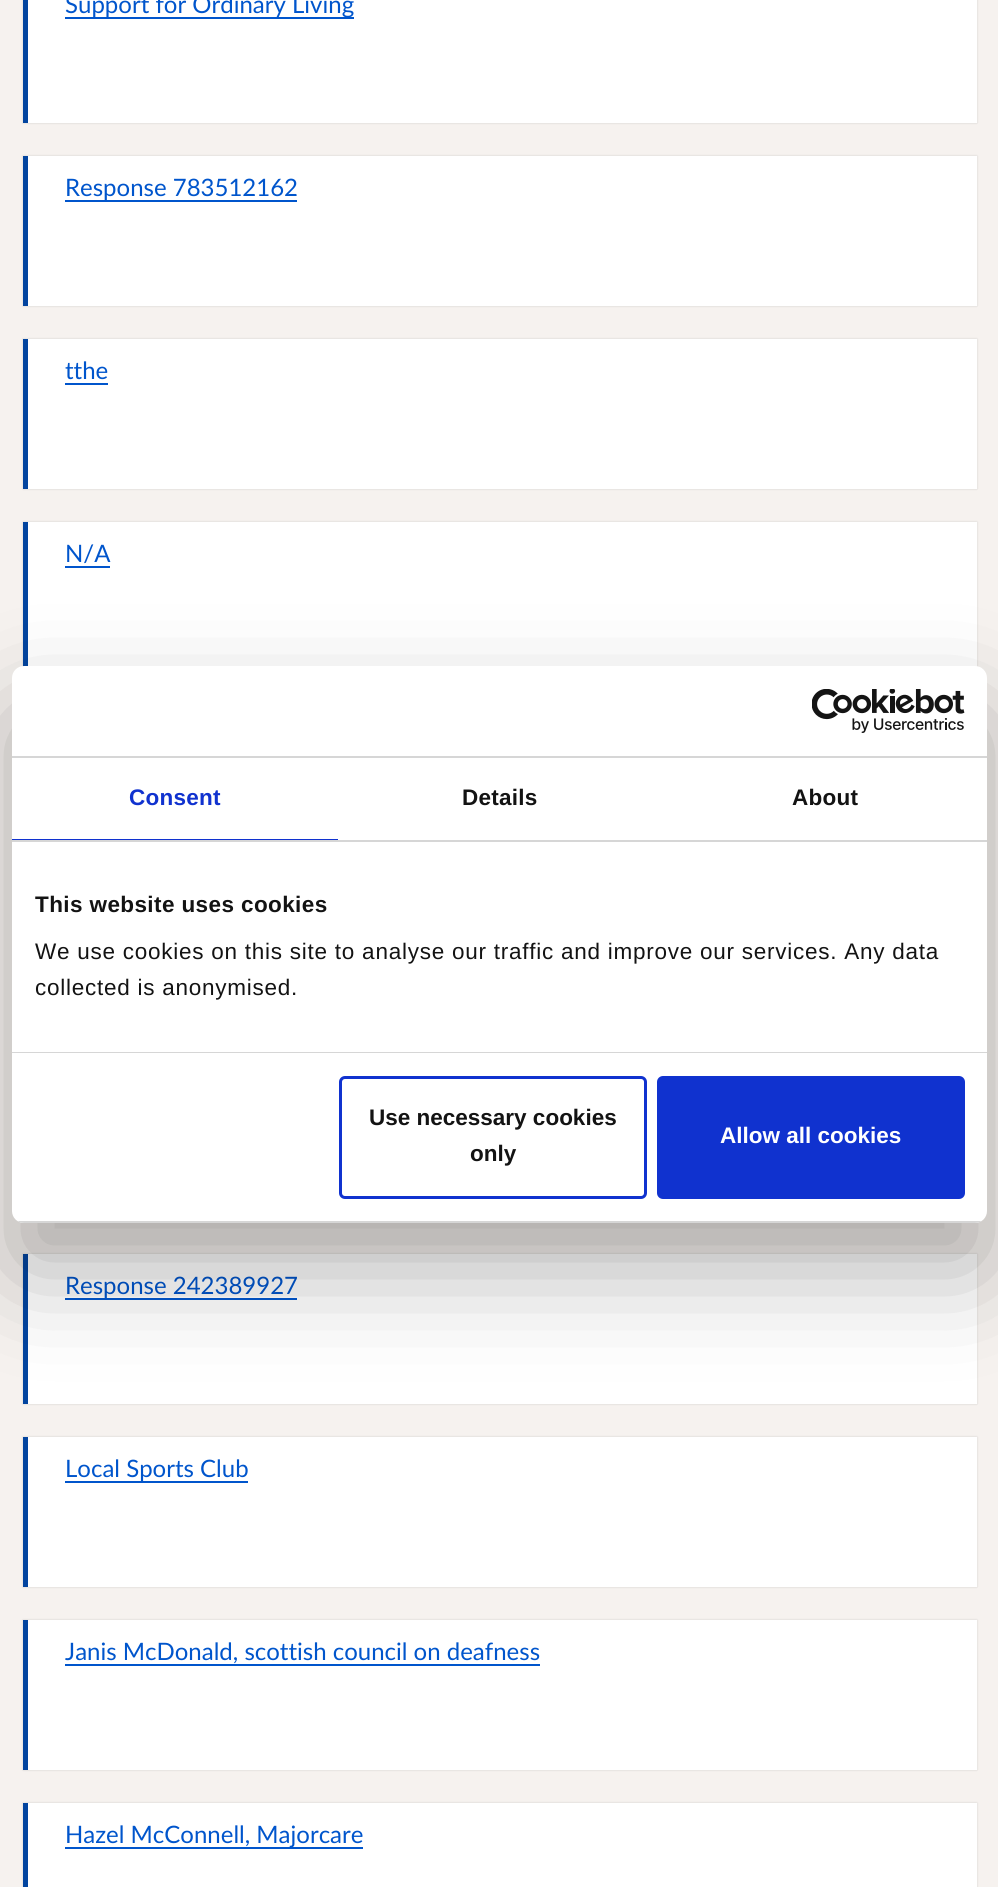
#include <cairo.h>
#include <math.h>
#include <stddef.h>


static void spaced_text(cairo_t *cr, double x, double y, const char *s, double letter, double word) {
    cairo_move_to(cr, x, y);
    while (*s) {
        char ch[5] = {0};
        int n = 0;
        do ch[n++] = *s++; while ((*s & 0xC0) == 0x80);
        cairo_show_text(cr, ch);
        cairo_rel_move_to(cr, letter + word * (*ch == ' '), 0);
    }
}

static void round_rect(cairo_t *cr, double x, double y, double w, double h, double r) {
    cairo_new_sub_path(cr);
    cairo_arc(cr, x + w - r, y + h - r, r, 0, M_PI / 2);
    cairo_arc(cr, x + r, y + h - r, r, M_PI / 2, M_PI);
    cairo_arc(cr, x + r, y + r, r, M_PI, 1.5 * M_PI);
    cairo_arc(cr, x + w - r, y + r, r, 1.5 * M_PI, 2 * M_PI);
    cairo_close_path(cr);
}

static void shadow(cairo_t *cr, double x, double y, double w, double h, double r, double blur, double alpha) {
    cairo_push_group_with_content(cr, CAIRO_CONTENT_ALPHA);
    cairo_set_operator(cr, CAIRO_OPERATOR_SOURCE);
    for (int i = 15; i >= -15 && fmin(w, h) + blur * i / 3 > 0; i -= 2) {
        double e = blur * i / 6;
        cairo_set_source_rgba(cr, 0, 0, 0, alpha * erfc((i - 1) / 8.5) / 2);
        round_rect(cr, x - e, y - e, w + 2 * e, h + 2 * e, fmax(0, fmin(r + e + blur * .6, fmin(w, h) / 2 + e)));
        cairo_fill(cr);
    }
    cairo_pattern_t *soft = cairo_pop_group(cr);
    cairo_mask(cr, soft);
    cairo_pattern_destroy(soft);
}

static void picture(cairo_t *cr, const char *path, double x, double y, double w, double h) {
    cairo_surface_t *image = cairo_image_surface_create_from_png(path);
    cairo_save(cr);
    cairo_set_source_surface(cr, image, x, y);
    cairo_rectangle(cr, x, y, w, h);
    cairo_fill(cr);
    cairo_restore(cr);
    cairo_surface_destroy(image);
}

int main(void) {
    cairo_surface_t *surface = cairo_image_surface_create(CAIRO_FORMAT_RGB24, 998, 1887);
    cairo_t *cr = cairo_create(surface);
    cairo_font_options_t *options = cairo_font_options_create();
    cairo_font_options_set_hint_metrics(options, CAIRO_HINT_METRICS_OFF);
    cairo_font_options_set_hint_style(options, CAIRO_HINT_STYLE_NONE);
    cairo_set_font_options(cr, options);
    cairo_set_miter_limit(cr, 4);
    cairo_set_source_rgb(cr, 0.961, 0.949, 0.937);
    cairo_paint(cr);
    cairo_set_source_rgb(cr, 0, 0, 0);
    shadow(cr, 23, -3, 954, 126, 0, 1, 0.15);
    cairo_set_source_rgb(cr, 1, 1, 1);
    cairo_rectangle(cr, 28, 0, 949, 123);
    cairo_fill(cr);
    cairo_set_source_rgb(cr, 0.008, 0.267, 0.624);
    cairo_rectangle(cr, 23, 0, 5, 123);
    cairo_fill(cr);
    cairo_set_source_rgb(cr, 0, 0.333, 0.8);
    cairo_rectangle(cr, 65, 17, 289, 2);
    cairo_fill(cr);
    cairo_select_font_face(cr, "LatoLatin", CAIRO_FONT_SLANT_NORMAL, CAIRO_FONT_WEIGHT_NORMAL);
    cairo_set_font_size(cr, 24);
    cairo_move_to(cr, 65, 13);
    cairo_show_text(cr, "Support for Ordinary Living");
    cairo_set_source_rgb(cr, 0, 0, 0);
    shadow(cr, 23, 156, 954, 150, 0, 1, 0.15);
    cairo_set_source_rgb(cr, 1, 1, 1);
    cairo_rectangle(cr, 28, 156, 949, 150);
    cairo_fill(cr);
    cairo_set_source_rgb(cr, 0.008, 0.267, 0.624);
    cairo_rectangle(cr, 23, 156, 5, 150);
    cairo_fill(cr);
    cairo_set_source_rgb(cr, 0, 0.333, 0.8);
    cairo_rectangle(cr, 65, 200, 232, 2);
    cairo_fill(cr);
    cairo_move_to(cr, 65, 196);
    cairo_show_text(cr, "Response 783512162");
    cairo_set_source_rgb(cr, 0, 0, 0);
    shadow(cr, 23, 339, 954, 150, 0, 1, 0.15);
    cairo_set_source_rgb(cr, 1, 1, 1);
    cairo_rectangle(cr, 28, 339, 949, 150);
    cairo_fill(cr);
    cairo_set_source_rgb(cr, 0.008, 0.267, 0.624);
    cairo_rectangle(cr, 23, 339, 5, 150);
    cairo_fill(cr);
    cairo_set_source_rgb(cr, 0, 0.333, 0.8);
    cairo_move_to(cr, 65, 379);
    cairo_show_text(cr, "tthe");
    cairo_rectangle(cr, 65, 383, 43, 2);
    cairo_fill(cr);
    cairo_set_source_rgb(cr, 0, 0, 0);
    shadow(cr, 23, 522, 954, 150, 0, 1, 0.15);
    cairo_set_source_rgb(cr, 1, 1, 1);
    cairo_rectangle(cr, 28, 522, 949, 145);
    cairo_fill(cr);
    cairo_set_source_rgb(cr, 0.008, 0.267, 0.624);
    cairo_rectangle(cr, 23, 522, 5, 150);
    cairo_fill(cr);
    cairo_set_source_rgb(cr, 0, 0.333, 0.8);
    cairo_move_to(cr, 65, 562);
    cairo_show_text(cr, "N/A");
    cairo_rectangle(cr, 65, 566, 45, 2);
    cairo_fill(cr);
    cairo_set_source_rgb(cr, 0, 0, 0);
    shadow(cr, 23, 1254, 954, 150, 0, 1, 0.15);
    cairo_set_source_rgb(cr, 1, 1, 1);
    cairo_rectangle(cr, 28, 1254, 949, 150);
    cairo_fill(cr);
    cairo_set_source_rgb(cr, 0.008, 0.267, 0.624);
    cairo_rectangle(cr, 23, 1254, 5, 150);
    cairo_fill(cr);
    cairo_set_source_rgb(cr, 0, 0.333, 0.8);
    cairo_rectangle(cr, 65, 1298, 232, 2);
    cairo_fill(cr);
    cairo_move_to(cr, 65, 1294);
    cairo_show_text(cr, "Response 242389927");
    cairo_set_source_rgb(cr, 0, 0, 0);
    shadow(cr, 23, 1437, 954, 150, 0, 1, 0.15);
    cairo_set_source_rgb(cr, 1, 1, 1);
    cairo_rectangle(cr, 28, 1437, 949, 150);
    cairo_fill(cr);
    cairo_set_source_rgb(cr, 0.008, 0.267, 0.624);
    cairo_rectangle(cr, 23, 1437, 5, 150);
    cairo_fill(cr);
    cairo_set_source_rgb(cr, 0, 0.333, 0.8);
    cairo_rectangle(cr, 65, 1481, 183, 2);
    cairo_fill(cr);
    cairo_move_to(cr, 65, 1477);
    cairo_show_text(cr, "Local Sports Club");
    cairo_set_source_rgb(cr, 0, 0, 0);
    shadow(cr, 23, 1620, 954, 150, 0, 1, 0.15);
    cairo_set_source_rgb(cr, 1, 1, 1);
    cairo_rectangle(cr, 28, 1620, 949, 150);
    cairo_fill(cr);
    cairo_set_source_rgb(cr, 0.008, 0.267, 0.624);
    cairo_rectangle(cr, 23, 1620, 5, 150);
    cairo_fill(cr);
    cairo_set_source_rgb(cr, 0, 0.333, 0.8);
    cairo_move_to(cr, 65, 1660);
    cairo_show_text(cr, "Janis McDonald, scottish council on deafness");
    cairo_rectangle(cr, 65, 1664, 475, 2);
    cairo_fill(cr);
    cairo_set_source_rgb(cr, 0, 0, 0);
    shadow(cr, 23, 1803, 954, 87, 0, 1, 0.15);
    cairo_set_source_rgb(cr, 1, 1, 1);
    cairo_rectangle(cr, 28, 1803, 949, 84);
    cairo_fill(cr);
    cairo_set_source_rgb(cr, 0.008, 0.267, 0.624);
    cairo_rectangle(cr, 23, 1803, 5, 84);
    cairo_fill(cr);
    cairo_set_source_rgb(cr, 0, 0.333, 0.8);
    cairo_rectangle(cr, 65, 1847, 298, 2);
    cairo_fill(cr);
    cairo_move_to(cr, 65, 1843);
    cairo_show_text(cr, "Hazel McConnell, Majorcare");
    cairo_set_source_rgb(cr, 0, 0, 0);
    shadow(cr, 12, 714, 975, 557, 12, 51, 0.3);
    cairo_set_source_rgb(cr, 1, 1, 1);
    round_rect(cr, 12, 666, 975, 557, 12);
    cairo_fill(cr);
    cairo_set_source_rgb(cr, 0.839, 0.839, 0.839);
    cairo_rectangle(cr, 12, 756, 975, 2);
    cairo_fill(cr);
    picture(cr, "img1.png", 812, 689, 153, 44);
    cairo_rectangle(cr, 12, 840, 975, 2);
    cairo_fill(cr);
    cairo_set_source_rgb(cr, 0.063, 0.196, 0.812);
    cairo_rectangle(cr, 12, 839, 326, 1);
    cairo_fill(cr);
    cairo_select_font_face(cr, "Liberation Sans", CAIRO_FONT_SLANT_NORMAL, CAIRO_FONT_WEIGHT_BOLD);
    cairo_set_font_size(cr, 22.5);
    spaced_text(cr, 129, 805, "Consent", 0.25, 0);
    cairo_set_source_rgb(cr, 0.078, 0.078, 0.078);
    spaced_text(cr, 462, 805, "Details", 0.25, 0);
    spaced_text(cr, 792, 805, "About", 0.25, 0);
    cairo_set_source_rgb(cr, 0.839, 0.839, 0.839);
    cairo_rectangle(cr, 12, 1052, 975, 1);
    cairo_fill(cr);
    cairo_set_source_rgb(cr, 0.078, 0.078, 0.078);
    spaced_text(cr, 35, 912, "This website uses cookies", 0.4, 0);
    cairo_select_font_face(cr, "Liberation Sans", CAIRO_FONT_SLANT_NORMAL, CAIRO_FONT_WEIGHT_NORMAL);
    spaced_text(cr, 35, 959, "We use cookies on this site to analyse our traffic and improve our services. Any data", 0.75, 0);
    spaced_text(cr, 35, 995, "collected is anonymised.", 0.75, 0);
    cairo_save(cr);
    round_rect(cr, 12, 666, 975, 557, 12);
    cairo_clip(cr);
    cairo_set_source_rgb(cr, 0.839, 0.839, 0.839);
    cairo_rectangle(cr, 12, 1221, 975, 2);
    cairo_fill(cr);
    cairo_restore(cr);
    round_rect(cr, 340.5, 1077.5, 305, 120, 4.5);
    cairo_set_source_rgb(cr, 0.063, 0.196, 0.812);
    cairo_set_line_width(cr, 3);
    cairo_stroke(cr);
    cairo_select_font_face(cr, "Liberation Sans", CAIRO_FONT_SLANT_NORMAL, CAIRO_FONT_WEIGHT_BOLD);
    cairo_set_source_rgb(cr, 0.078, 0.078, 0.078);
    cairo_move_to(cr, 369, 1125);
    cairo_show_text(cr, "Use necessary cookies");
    cairo_move_to(cr, 470, 1161);
    cairo_show_text(cr, "only");
    cairo_set_source_rgb(cr, 0.063, 0.196, 0.812);
    round_rect(cr, 658.5, 1077.5, 305, 120, 4.5);
    cairo_fill_preserve(cr);
    cairo_stroke(cr);
    cairo_set_source_rgb(cr, 1, 1, 1);
    cairo_move_to(cr, 720, 1143);
    cairo_show_text(cr, "Allow all cookies");
    cairo_surface_write_to_png(surface, "page.png");
    cairo_font_options_destroy(options);
    cairo_destroy(cr);
    cairo_surface_destroy(surface);
    return 0;
}
